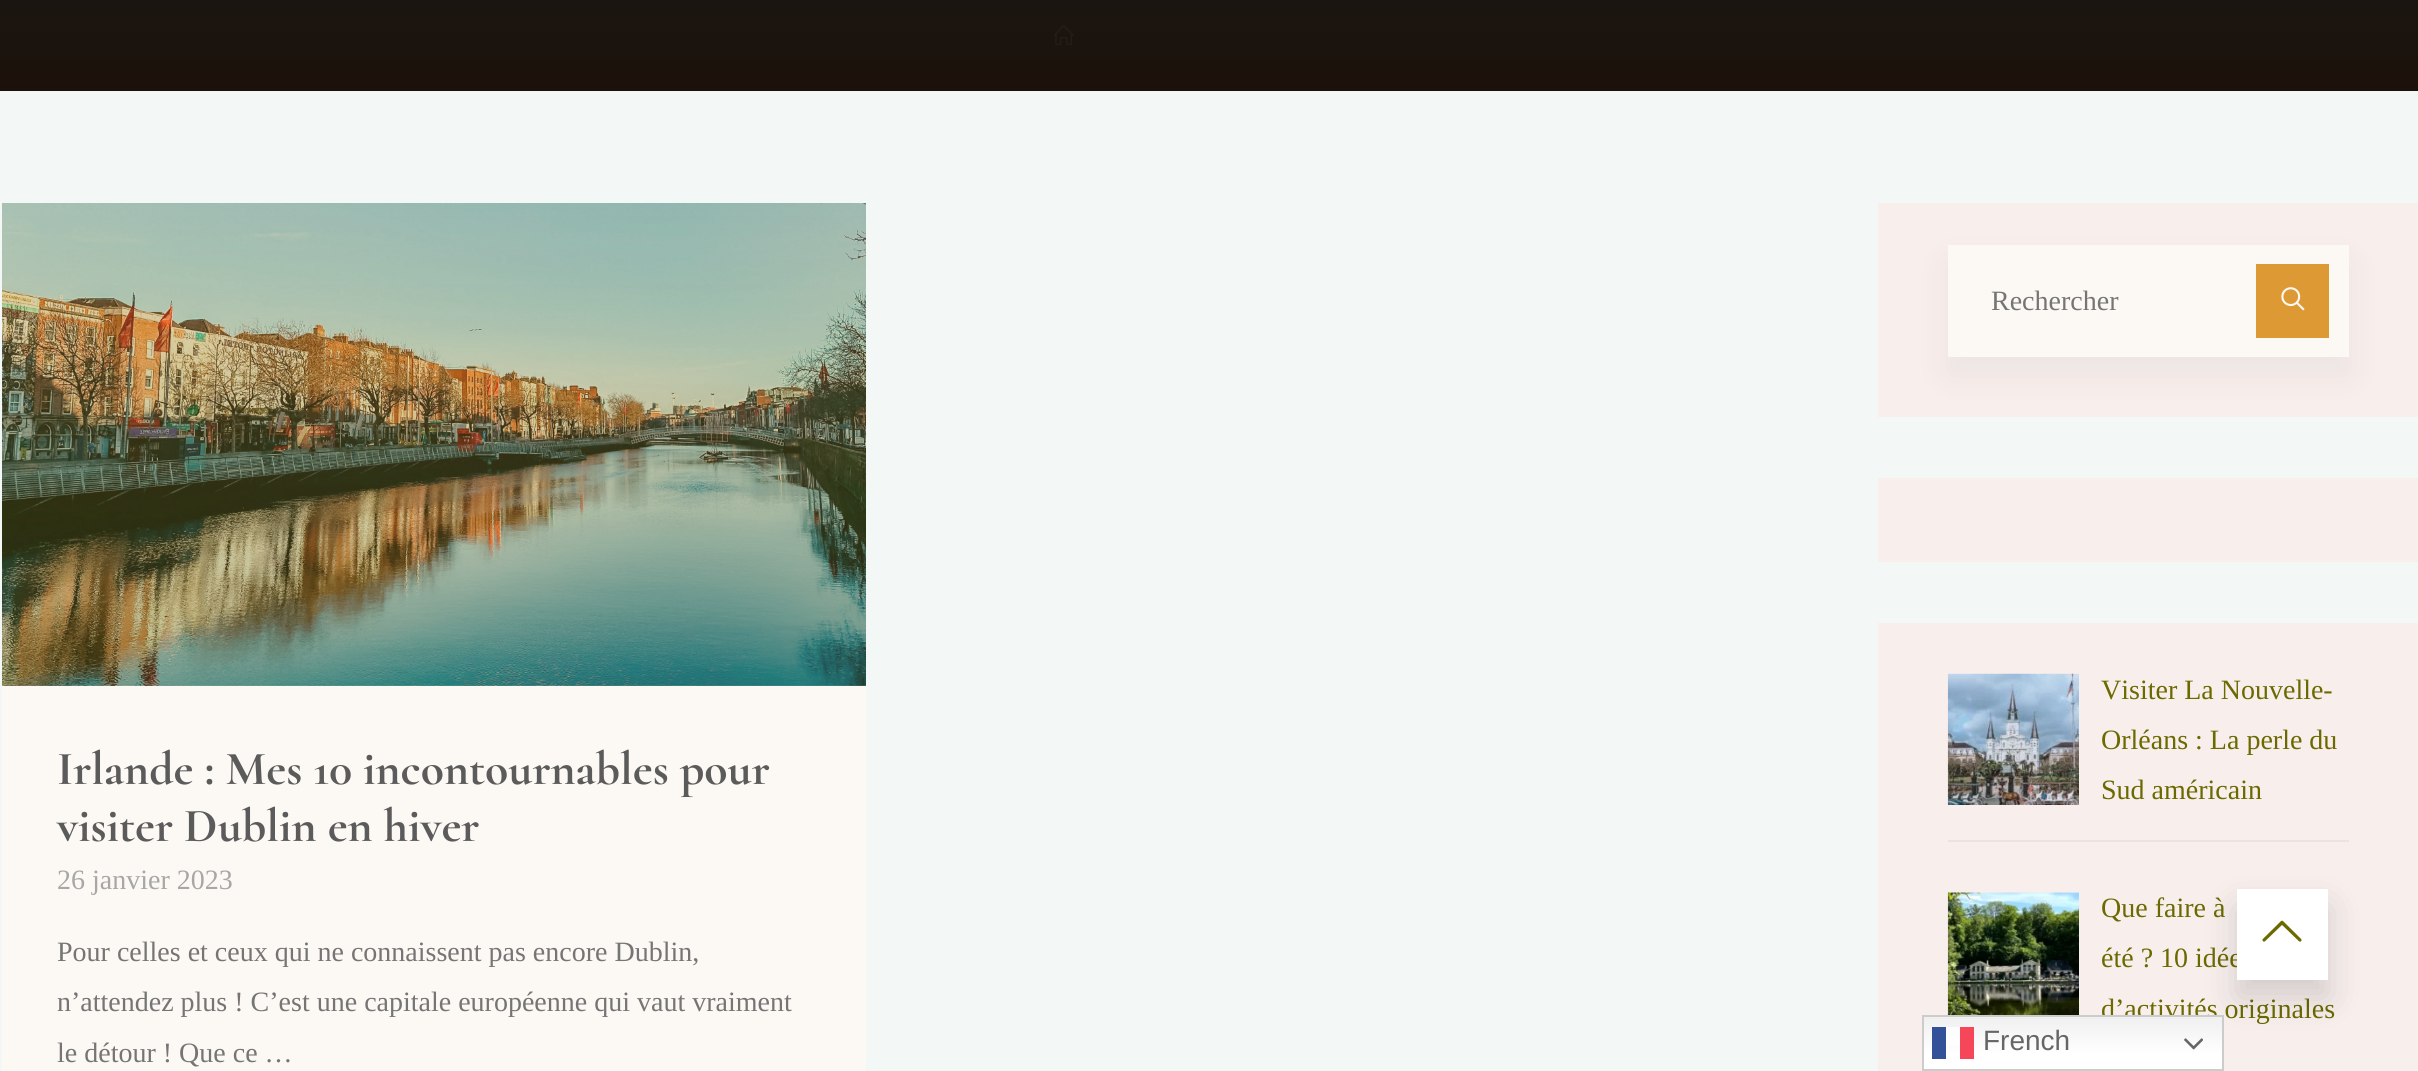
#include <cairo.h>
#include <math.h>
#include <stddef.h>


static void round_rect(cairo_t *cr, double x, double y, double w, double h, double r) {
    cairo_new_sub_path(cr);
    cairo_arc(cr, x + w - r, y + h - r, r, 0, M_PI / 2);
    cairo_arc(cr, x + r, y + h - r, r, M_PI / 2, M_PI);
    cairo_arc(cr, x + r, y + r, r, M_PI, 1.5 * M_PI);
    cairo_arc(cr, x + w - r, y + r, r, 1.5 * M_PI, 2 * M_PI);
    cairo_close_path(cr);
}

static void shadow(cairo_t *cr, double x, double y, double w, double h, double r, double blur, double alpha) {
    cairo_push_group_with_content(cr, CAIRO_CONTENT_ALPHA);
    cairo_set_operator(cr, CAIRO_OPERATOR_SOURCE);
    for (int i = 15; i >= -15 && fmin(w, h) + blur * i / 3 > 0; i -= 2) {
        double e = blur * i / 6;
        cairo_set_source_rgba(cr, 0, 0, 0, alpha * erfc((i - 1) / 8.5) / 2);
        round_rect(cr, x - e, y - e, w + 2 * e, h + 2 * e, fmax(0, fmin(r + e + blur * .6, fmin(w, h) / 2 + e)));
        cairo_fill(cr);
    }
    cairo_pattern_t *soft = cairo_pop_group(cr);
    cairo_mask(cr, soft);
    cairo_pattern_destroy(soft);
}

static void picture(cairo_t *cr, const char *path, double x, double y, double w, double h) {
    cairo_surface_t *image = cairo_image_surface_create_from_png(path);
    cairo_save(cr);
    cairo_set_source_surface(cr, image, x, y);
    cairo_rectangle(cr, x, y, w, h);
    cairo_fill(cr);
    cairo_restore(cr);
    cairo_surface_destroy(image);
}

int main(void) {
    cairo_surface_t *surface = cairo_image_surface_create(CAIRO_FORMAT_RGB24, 2418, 1071);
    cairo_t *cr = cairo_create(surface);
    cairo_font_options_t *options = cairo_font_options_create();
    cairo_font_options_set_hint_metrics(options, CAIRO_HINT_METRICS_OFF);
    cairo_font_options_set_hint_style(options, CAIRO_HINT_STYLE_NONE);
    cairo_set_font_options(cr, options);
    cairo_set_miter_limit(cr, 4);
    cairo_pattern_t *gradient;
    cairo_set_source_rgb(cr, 0.953, 0.969, 0.965);
    cairo_paint(cr);
    gradient = cairo_pattern_create_linear(1209, -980, 1209, 91);
    cairo_pattern_add_color_stop_rgba(gradient, 0, 0.031, 0.255, 0.361, 1);
    cairo_pattern_add_color_stop_rgba(gradient, 1, 0.11, 0.067, 0.039, 1);
    cairo_set_source(cr, gradient);
    cairo_pattern_destroy(gradient);
    cairo_rectangle(cr, 0, 0, 2418, 91);
    cairo_fill(cr);
    picture(cr, "img1.png", 1054, 25, 20, 20);
    cairo_set_source_rgb(cr, 0.988, 0.976, 0.957);
    cairo_rectangle(cr, 2, 685, 864, 386);
    cairo_fill(cr);
    picture(cr, "img2.png", 2, 203, 864, 483);
    gradient = cairo_pattern_create_linear(434, 203, 434, 686);
    cairo_pattern_add_color_stop_rgba(gradient, 0, 0.867, 0.6, 0.2, 0.3);
    cairo_pattern_add_color_stop_rgba(gradient, 1, 0.42, 0.412, 0, 0.3);
    cairo_set_source(cr, gradient);
    cairo_pattern_destroy(gradient);
    cairo_rectangle(cr, 2, 203, 864, 483);
    cairo_fill(cr);
    cairo_select_font_face(cr, "Cormorant", CAIRO_FONT_SLANT_NORMAL, CAIRO_FONT_WEIGHT_BOLD);
    cairo_set_font_size(cr, 47.6);
    cairo_set_source_rgb(cr, 0.357, 0.357, 0.357);
    cairo_move_to(cr, 57, 784);
    cairo_show_text(cr, "Irlande : Mes 10 incontournables pour");
    cairo_move_to(cr, 57, 841);
    cairo_show_text(cr, "visiter Dublin en hiver");
    cairo_select_font_face(cr, "Liberation Serif", CAIRO_FONT_SLANT_NORMAL, CAIRO_FONT_WEIGHT_NORMAL);
    cairo_set_font_size(cr, 28);
    cairo_set_source_rgb(cr, 0.655, 0.655, 0.655);
    cairo_move_to(cr, 57, 889);
    cairo_show_text(cr, "26 janvier 2023");
    cairo_set_source_rgb(cr, 0.459, 0.459, 0.459);
    cairo_move_to(cr, 57, 961);
    cairo_show_text(cr, "Pour celles et ceux qui ne connaissent pas encore Dublin,");
    cairo_move_to(cr, 57, 1011);
    cairo_show_text(cr, "n’attendez plus ! C’est une capitale européenne qui vaut vraiment");
    cairo_move_to(cr, 57, 1062);
    cairo_show_text(cr, "le détour ! Que ce …");
    cairo_set_source_rgb(cr, 0.969, 0.937, 0.929);
    cairo_rectangle(cr, 1878, 203, 540, 214);
    cairo_fill(cr);
    cairo_set_source_rgb(cr, 0, 0, 0);
    shadow(cr, 1948, 263, 401, 112, 0, 17.5, 0.05);
    cairo_set_source_rgb(cr, 0.988, 0.976, 0.957);
    cairo_rectangle(cr, 1948, 245, 401, 112);
    cairo_fill(cr);
    cairo_set_source_rgb(cr, 0.459, 0.459, 0.459);
    cairo_move_to(cr, 1991, 310);
    cairo_show_text(cr, "Rechercher");
    cairo_set_source_rgb(cr, 0.867, 0.6, 0.2);
    cairo_rectangle(cr, 2256, 264, 73, 74);
    cairo_fill(cr);
    picture(cr, "img3.png", 2281, 287, 24, 24);
    cairo_set_source_rgb(cr, 0.969, 0.937, 0.929);
    cairo_rectangle(cr, 1878, 478, 540, 84);
    cairo_fill(cr);
    cairo_rectangle(cr, 1878, 623, 540, 448);
    cairo_fill(cr);
    cairo_set_source_rgb(cr, 0.922, 0.89, 0.882);
    cairo_rectangle(cr, 1948, 840, 401, 2);
    cairo_fill(cr);
    picture(cr, "img4.png", 1947, 673, 132, 132);
    cairo_set_source_rgb(cr, 0.42, 0.412, 0);
    cairo_move_to(cr, 2101, 699);
    cairo_show_text(cr, "Visiter La Nouvelle-");
    cairo_move_to(cr, 2101, 749);
    cairo_show_text(cr, "Orléans : La perle du");
    cairo_move_to(cr, 2101, 799);
    cairo_show_text(cr, "Sud américain");
    picture(cr, "img5.png", 1947, 892, 132, 123);
    cairo_move_to(cr, 2101, 917);
    cairo_show_text(cr, "Que faire à");
    cairo_move_to(cr, 2101, 967);
    cairo_show_text(cr, "été ? 10 idée");
    cairo_move_to(cr, 2101, 1018);
    cairo_show_text(cr, "d’activités originales");
    cairo_set_source_rgb(cr, 0, 0, 0);
    shadow(cr, 2237, 907, 91, 91, 0, 17.5, 0.15);
    cairo_set_source_rgb(cr, 1, 1, 1);
    cairo_rectangle(cr, 2237, 889, 91, 91);
    cairo_fill(cr);
    picture(cr, "img6.png", 2262, 920, 40, 22);
    gradient = cairo_pattern_create_linear(2073, 1015, 2073, 1071);
    cairo_pattern_add_color_stop_rgba(gradient, 0, 0.937, 0.937, 0.937, 1);
    cairo_pattern_add_color_stop_rgba(gradient, 0.7, 1, 1, 1, 1);
    cairo_set_source(cr, gradient);
    cairo_pattern_destroy(gradient);
    cairo_rectangle(cr, 1924, 1017, 298, 52);
    cairo_fill(cr);
    gradient = cairo_pattern_create_linear(2073, 1015, 2073, 1071);
    cairo_pattern_add_color_stop_rgba(gradient, 0, 0.988, 0.988, 0.988, 1);
    cairo_pattern_add_color_stop_rgba(gradient, 0.7, 1, 1, 1, 1);
    cairo_set_source(cr, gradient);
    cairo_pattern_destroy(gradient);
    cairo_rectangle(cr, 1946, 1027, 14, 19);
    cairo_fill(cr);
    cairo_rectangle(cr, 1923, 1016, 300, 54);
    cairo_set_source_rgb(cr, 0.8, 0.8, 0.8);
    cairo_stroke(cr);
    cairo_set_source_rgb(cr, 0.2, 0.318, 0.596);
    cairo_rectangle(cr, 1932, 1027, 14, 32);
    cairo_fill(cr);
    cairo_set_source_rgb(cr, 0.961, 0.275, 0.349);
    cairo_rectangle(cr, 1960, 1027, 14, 32);
    cairo_fill(cr);
    cairo_select_font_face(cr, "Liberation Sans", CAIRO_FONT_SLANT_NORMAL, CAIRO_FONT_WEIGHT_NORMAL);
    cairo_set_source_rgb(cr, 0.4, 0.4, 0.4);
    cairo_move_to(cr, 1983, 1050);
    cairo_show_text(cr, "French");
    picture(cr, "img7.png", 2184, 1038, 19, 12);
    cairo_surface_write_to_png(surface, "page.png");
    cairo_font_options_destroy(options);
    cairo_destroy(cr);
    cairo_surface_destroy(surface);
    return 0;
}
